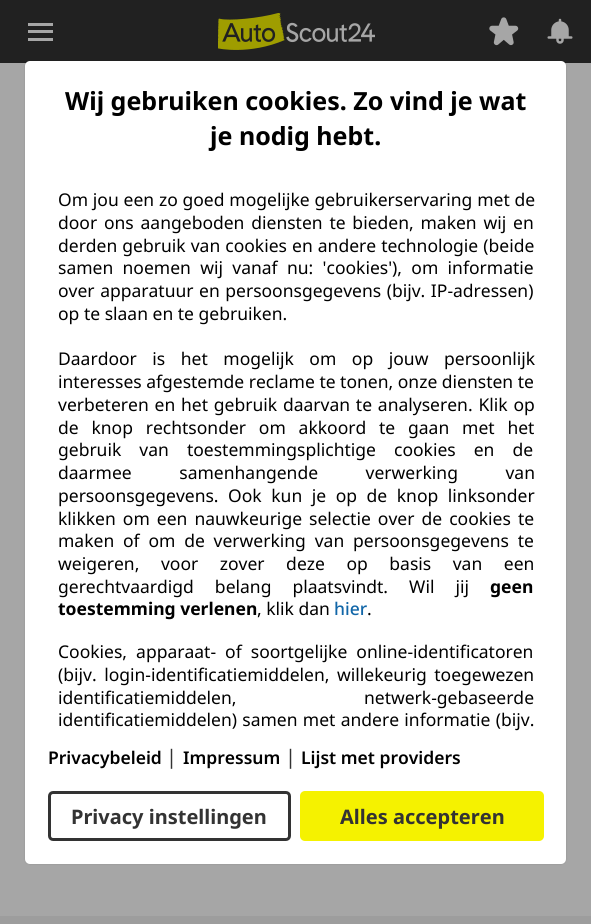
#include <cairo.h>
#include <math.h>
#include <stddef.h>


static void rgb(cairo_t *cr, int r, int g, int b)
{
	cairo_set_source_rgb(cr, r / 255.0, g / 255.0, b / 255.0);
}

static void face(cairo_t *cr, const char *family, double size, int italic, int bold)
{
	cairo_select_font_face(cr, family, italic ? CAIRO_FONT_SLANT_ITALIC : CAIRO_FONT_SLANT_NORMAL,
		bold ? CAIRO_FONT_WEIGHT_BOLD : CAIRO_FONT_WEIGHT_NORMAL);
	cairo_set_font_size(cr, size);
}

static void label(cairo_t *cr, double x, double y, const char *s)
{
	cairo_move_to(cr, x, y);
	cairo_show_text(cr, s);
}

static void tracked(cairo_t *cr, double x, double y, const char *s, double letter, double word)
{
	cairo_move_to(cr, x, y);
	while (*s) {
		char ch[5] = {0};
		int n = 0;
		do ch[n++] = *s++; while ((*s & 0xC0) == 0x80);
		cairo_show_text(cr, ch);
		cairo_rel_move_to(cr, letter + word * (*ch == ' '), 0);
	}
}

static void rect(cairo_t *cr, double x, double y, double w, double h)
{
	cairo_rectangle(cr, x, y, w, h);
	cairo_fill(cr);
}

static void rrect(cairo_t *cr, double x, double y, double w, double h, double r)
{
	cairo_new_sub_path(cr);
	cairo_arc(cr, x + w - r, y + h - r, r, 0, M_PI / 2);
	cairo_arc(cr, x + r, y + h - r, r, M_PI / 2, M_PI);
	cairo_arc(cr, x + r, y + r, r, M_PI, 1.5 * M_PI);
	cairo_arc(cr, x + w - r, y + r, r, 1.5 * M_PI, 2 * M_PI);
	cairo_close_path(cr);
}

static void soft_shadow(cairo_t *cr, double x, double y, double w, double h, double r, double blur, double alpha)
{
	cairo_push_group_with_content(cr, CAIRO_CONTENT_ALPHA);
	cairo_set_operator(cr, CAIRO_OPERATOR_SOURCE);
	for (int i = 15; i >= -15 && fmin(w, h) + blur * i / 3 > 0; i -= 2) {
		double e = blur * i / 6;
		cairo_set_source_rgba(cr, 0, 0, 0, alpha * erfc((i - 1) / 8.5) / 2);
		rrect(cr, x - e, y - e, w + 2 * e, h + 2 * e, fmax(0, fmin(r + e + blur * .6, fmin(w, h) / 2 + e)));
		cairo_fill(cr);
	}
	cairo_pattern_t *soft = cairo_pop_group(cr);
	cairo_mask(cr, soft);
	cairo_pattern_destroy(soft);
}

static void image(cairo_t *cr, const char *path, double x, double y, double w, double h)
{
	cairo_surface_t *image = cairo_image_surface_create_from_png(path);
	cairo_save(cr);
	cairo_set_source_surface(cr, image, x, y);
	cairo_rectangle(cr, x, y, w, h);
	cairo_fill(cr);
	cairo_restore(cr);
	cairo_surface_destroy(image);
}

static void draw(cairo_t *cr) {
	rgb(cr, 157, 157, 157);
	cairo_paint(cr);
	rgb(cr, 33, 33, 33);
	rect(cr, 0, 0, 591, 63);
	rgb(cr, 166, 166, 166);
	rect(cr, 28, 30, 25, 3);
	rect(cr, 28, 23, 25, 3);
	rect(cr, 28, 38, 25, 3);
	image(cr, "image0.png", 218, 13, 157, 37);
	image(cr, "image1.png", 489, 17, 30, 29);
	image(cr, "image2.png", 547, 18, 26, 26);
	rect(cr, 0, 63, 591, 853);
	rgb(cr, 0, 0, 0);
	soft_shadow(cr, 25, 61, 541, 803, 5, 1, 0.12);
	rgb(cr, 255, 255, 255);
	rrect(cr, 25, 61, 541, 803, 5);
	cairo_fill(cr);
	face(cr, "Noto Sans", 25, 0, 1);
	rgb(cr, 0, 0, 0);
	label(cr, 65, 110, "Wij gebruiken cookies. Zo vind je wat");
	label(cr, 210, 145, "je nodig hebt.");
	face(cr, "Noto Sans", 17.5, 0, 0);
	tracked(cr, 58, 206, "Om jou een zo goed mogelijke gebruikerservaring met de", 0, 0.25);
	tracked(cr, 58, 229, "door ons aangeboden diensten te bieden, maken wij en", 0, 2.25);
	tracked(cr, 58, 252, "derden gebruik van cookies en andere technologie (beide", 0, 0.5);
	tracked(cr, 58, 274, "samen noemen wij vanaf nu: 'cookies'), om informatie", 0, 4.75);
	tracked(cr, 58, 297, "over apparatuur en persoonsgegevens (bijv. IP-adressen)", 0, 1);
	label(cr, 58, 320, "op te slaan en te gebruiken.");
	tracked(cr, 58, 365, "Daardoor is het mogelijk om op jouw persoonlijk", 0, 11);
	label(cr, 58, 388, "interesses afgestemde reclame te tonen, onze diensten te");
	tracked(cr, 58, 411, "verbeteren en het gebruik daarvan te analyseren. Klik op", 0, 1.25);
	tracked(cr, 58, 434, "de knop rechtsonder om akkoord te gaan met het", 0, 8.25);
	tracked(cr, 58, 456, "gebruik van toestemmingsplichtige cookies en de", 0, 13.5);
	tracked(cr, 58, 479, "daarmee samenhangende verwerking van", 0, 43);
	tracked(cr, 58, 502, "persoonsgegevens. Ook kun je op de knop linksonder", 0, 5);
	tracked(cr, 58, 525, "klikken om een nauwkeurige selectie over de cookies te", 0, 2.5);
	tracked(cr, 58, 547, "maken of om de verwerking van persoonsgegevens te", 0, 4.25);
	tracked(cr, 58, 570, "weigeren, voor zover deze op basis van een", 0, 17);
	tracked(cr, 58, 593, "gerechtvaardigd belang plaatsvindt. Wil jij", 0, 16.5);
	face(cr, "Noto Sans", 17.5, 0, 1);
	label(cr, 490, 593, "geen");
	label(cr, 58, 615, "toestemming verlenen");
	face(cr, "Noto Sans", 17.5, 0, 0);
	label(cr, 257, 615, ", klik dan");
	face(cr, "Noto Sans Medium", 17.5, 0, 0);
	rgb(cr, 17, 102, 168);
	label(cr, 334, 615, "hier");
	face(cr, "Noto Sans", 17.5, 0, 0);
	rgb(cr, 0, 0, 0);
	label(cr, 367, 615, ".");
	tracked(cr, 58, 658, "Cookies, apparaat- of soortgelijke online-identificatoren", 0, 4.5);
	tracked(cr, 58, 681, "(bijv. login-identificatiemiddelen, willekeurig toegewezen", 0, 3);
	tracked(cr, 58, 704, "identificatiemiddelen, netwerk-gebaseerde", 0, 123);
	tracked(cr, 58, 726, "identificatiemiddelen) samen met andere informatie (bijv.", 0, 0.75);
	face(cr, "Noto Sans SemiBold", 17.5, 0, 0);
	label(cr, 48, 764, "Privacybeleid");
	face(cr, "Noto Sans", 20, 0, 0);
	rgb(cr, 51, 51, 51);
	label(cr, 166, 764, "|");
	face(cr, "Noto Sans SemiBold", 17.5, 0, 0);
	rgb(cr, 0, 0, 0);
	label(cr, 183, 764, "Impressum");
	face(cr, "Noto Sans", 20, 0, 0);
	rgb(cr, 51, 51, 51);
	label(cr, 285, 764, "|");
	face(cr, "Noto Sans SemiBold", 17.5, 0, 0);
	rgb(cr, 0, 0, 0);
	label(cr, 301, 764, "Lijst met providers");
	rrect(cr, 49.5, 792.5, 240, 47, 3.5);
	rgb(cr, 51, 51, 51);
	cairo_set_line_width(cr, 3);
	cairo_stroke(cr);
	face(cr, "Noto Sans", 20, 0, 1);
	label(cr, 71, 824, "Privacy instellingen");
	rgb(cr, 245, 242, 0);
	rrect(cr, 300, 791, 244, 50, 5);
	cairo_fill(cr);
	rgb(cr, 51, 51, 51);
	label(cr, 340, 824, "Alles accepteren");
}

int main(void) {
	cairo_surface_t *surface = cairo_image_surface_create(CAIRO_FORMAT_RGB24, 591, 924);
	cairo_t *cr = cairo_create(surface);
	cairo_font_options_t *options = cairo_font_options_create();
	cairo_font_options_set_hint_metrics(options, CAIRO_HINT_METRICS_OFF);
	cairo_font_options_set_hint_style(options, CAIRO_HINT_STYLE_NONE);
	cairo_set_font_options(cr, options);
	cairo_set_miter_limit(cr, 4);
	draw(cr);
	cairo_surface_write_to_png(surface, "render.png");
	cairo_font_options_destroy(options);
	cairo_destroy(cr);
	cairo_surface_destroy(surface);
	return 0;
}
